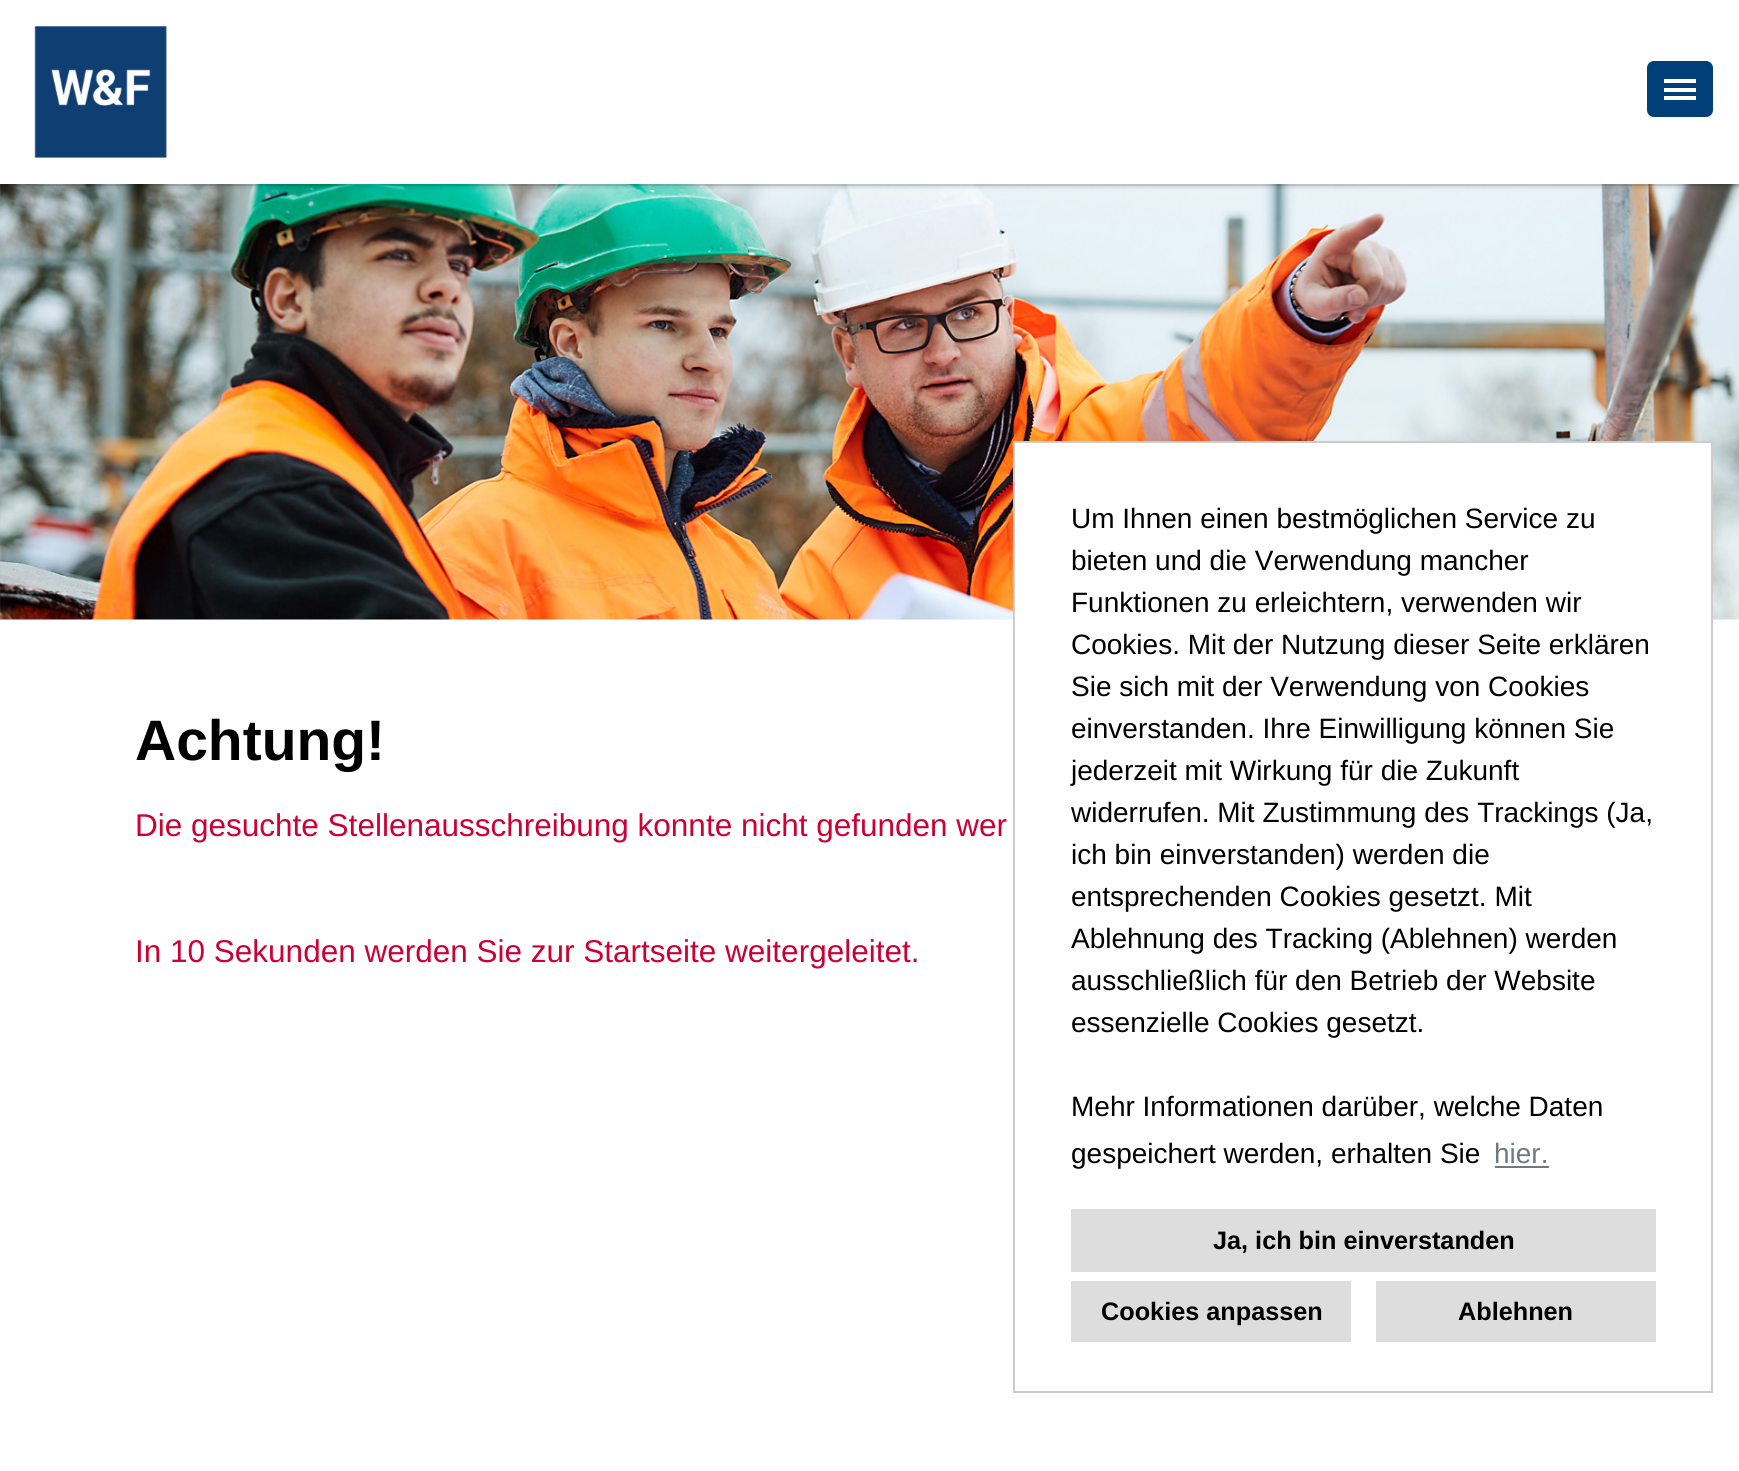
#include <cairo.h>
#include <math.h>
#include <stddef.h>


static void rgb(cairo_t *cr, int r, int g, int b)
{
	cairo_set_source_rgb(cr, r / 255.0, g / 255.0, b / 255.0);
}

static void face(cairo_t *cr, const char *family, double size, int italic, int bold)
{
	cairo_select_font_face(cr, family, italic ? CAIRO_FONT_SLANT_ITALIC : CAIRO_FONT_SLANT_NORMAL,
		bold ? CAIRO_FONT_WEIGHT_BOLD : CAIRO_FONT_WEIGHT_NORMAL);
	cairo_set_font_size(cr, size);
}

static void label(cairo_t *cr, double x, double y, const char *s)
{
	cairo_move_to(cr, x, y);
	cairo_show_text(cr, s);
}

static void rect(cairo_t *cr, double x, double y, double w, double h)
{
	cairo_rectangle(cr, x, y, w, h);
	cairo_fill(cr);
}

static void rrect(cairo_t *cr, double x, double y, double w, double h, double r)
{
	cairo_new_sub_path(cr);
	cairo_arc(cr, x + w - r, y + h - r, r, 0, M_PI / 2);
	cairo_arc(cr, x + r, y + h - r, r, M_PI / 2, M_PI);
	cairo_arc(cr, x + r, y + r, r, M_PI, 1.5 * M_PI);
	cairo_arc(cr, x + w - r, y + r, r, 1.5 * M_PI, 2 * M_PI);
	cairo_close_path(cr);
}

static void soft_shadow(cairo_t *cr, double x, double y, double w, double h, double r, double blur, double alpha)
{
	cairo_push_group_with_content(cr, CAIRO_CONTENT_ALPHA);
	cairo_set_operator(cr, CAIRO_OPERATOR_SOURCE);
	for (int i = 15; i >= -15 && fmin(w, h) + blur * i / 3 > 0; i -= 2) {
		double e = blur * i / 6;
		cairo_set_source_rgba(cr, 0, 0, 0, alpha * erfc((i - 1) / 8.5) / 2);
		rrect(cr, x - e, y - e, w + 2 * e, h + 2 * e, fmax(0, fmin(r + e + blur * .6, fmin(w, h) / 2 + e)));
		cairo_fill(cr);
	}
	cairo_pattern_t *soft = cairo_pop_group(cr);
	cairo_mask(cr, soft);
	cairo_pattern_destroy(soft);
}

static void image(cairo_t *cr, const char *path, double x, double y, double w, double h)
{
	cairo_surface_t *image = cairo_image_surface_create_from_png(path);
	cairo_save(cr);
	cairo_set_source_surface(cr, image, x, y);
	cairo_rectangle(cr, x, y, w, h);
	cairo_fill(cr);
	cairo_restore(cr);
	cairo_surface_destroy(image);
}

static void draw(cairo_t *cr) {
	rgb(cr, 255, 255, 255);
	cairo_paint(cr);
	image(cr, "image1.png", 0, 184, 1739, 436);
	cairo_rectangle(cr, -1, -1, 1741, 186);
	cairo_set_source_rgba(cr, 0, 0, 0, 0.08);
	cairo_stroke(cr);
	rgb(cr, 0, 0, 0);
	soft_shadow(cr, 0, 4, 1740, 183, 0, 2, 0.16);
	rgb(cr, 255, 255, 255);
	rect(cr, 0, 1, 1739, 183);
	image(cr, "image0.png", 34, 26, 133, 132);
	rgb(cr, 0, 63, 119);
	rrect(cr, 1647, 61, 66, 56, 7);
	cairo_fill(cr);
	rgb(cr, 255, 255, 255);
	rect(cr, 1664, 79, 32, 4);
	rect(cr, 1664, 88, 32, 4);
	rect(cr, 1664, 96, 32, 4);
	face(cr, "Liberation Sans", 57, 0, 1);
	rgb(cr, 0, 0, 0);
	label(cr, 135, 760, "Achtung!");
	face(cr, "Liberation Sans", 31.5, 0, 0);
	rgb(cr, 204, 0, 51);
	label(cr, 135, 836, "Die gesuchte Stellenausschreibung konnte nicht gefunden wer");
	label(cr, 135, 962, "In 10 Sekunden werden Sie zur Startseite weitergeleitet.");
	rgb(cr, 255, 255, 255);
	rect(cr, 1015, 443, 696, 177);
	cairo_rectangle(cr, 1014, 442, 698, 950);
	rgb(cr, 204, 204, 204);
	cairo_stroke(cr);
	face(cr, "Liberation Sans", 28, 0, 0);
	rgb(cr, 0, 0, 0);
	label(cr, 1071, 528, "Um Ihnen einen bestmöglichen Service zu");
	label(cr, 1071, 570, "bieten und die Verwendung mancher");
	label(cr, 1071, 612, "Funktionen zu erleichtern, verwenden wir");
	label(cr, 1071, 654, "Cookies. Mit der Nutzung dieser Seite erklären");
	label(cr, 1071, 696, "Sie sich mit der Verwendung von Cookies");
	label(cr, 1071, 738, "einverstanden. Ihre Einwilligung können Sie");
	label(cr, 1071, 780, "jederzeit mit Wirkung für die Zukunft");
	label(cr, 1071, 822, "widerrufen. Mit Zustimmung des Trackings (Ja,");
	label(cr, 1071, 864, "ich bin einverstanden) werden die");
	label(cr, 1071, 906, "entsprechenden Cookies gesetzt. Mit");
	label(cr, 1071, 948, "Ablehnung des Tracking (Ablehnen) werden");
	label(cr, 1071, 990, "ausschließlich für den Betrieb der Website");
	label(cr, 1071, 1032, "essenzielle Cookies gesetzt.");
	label(cr, 1071, 1116, "Mehr Informationen darüber, welche Daten");
	label(cr, 1071, 1163, "gespeichert werden, erhalten Sie");
	rgb(cr, 111, 121, 127);
	label(cr, 1494, 1163, "hier.");
	rect(cr, 1495, 1166, 54, 2);
	rgb(cr, 221, 221, 221);
	rect(cr, 1071, 1209, 585, 63);
	face(cr, "Liberation Sans", 25.25, 0, 1);
	rgb(cr, 0, 0, 0);
	label(cr, 1213, 1249, "Ja, ich bin einverstanden");
	rgb(cr, 221, 221, 221);
	rect(cr, 1071, 1281, 280, 61);
	rgb(cr, 0, 0, 0);
	label(cr, 1101, 1320, "Cookies anpassen");
	rgb(cr, 221, 221, 221);
	rect(cr, 1376, 1281, 280, 61);
	rgb(cr, 0, 0, 0);
	label(cr, 1458, 1320, "Ablehnen");
}

int main(void) {
	cairo_surface_t *surface = cairo_image_surface_create(CAIRO_FORMAT_RGB24, 1739, 1471);
	cairo_t *cr = cairo_create(surface);
	cairo_font_options_t *options = cairo_font_options_create();
	cairo_font_options_set_hint_metrics(options, CAIRO_HINT_METRICS_OFF);
	cairo_font_options_set_hint_style(options, CAIRO_HINT_STYLE_NONE);
	cairo_set_font_options(cr, options);
	cairo_set_miter_limit(cr, 4);
	draw(cr);
	cairo_surface_write_to_png(surface, "render.png");
	cairo_font_options_destroy(options);
	cairo_destroy(cr);
	cairo_surface_destroy(surface);
	return 0;
}
